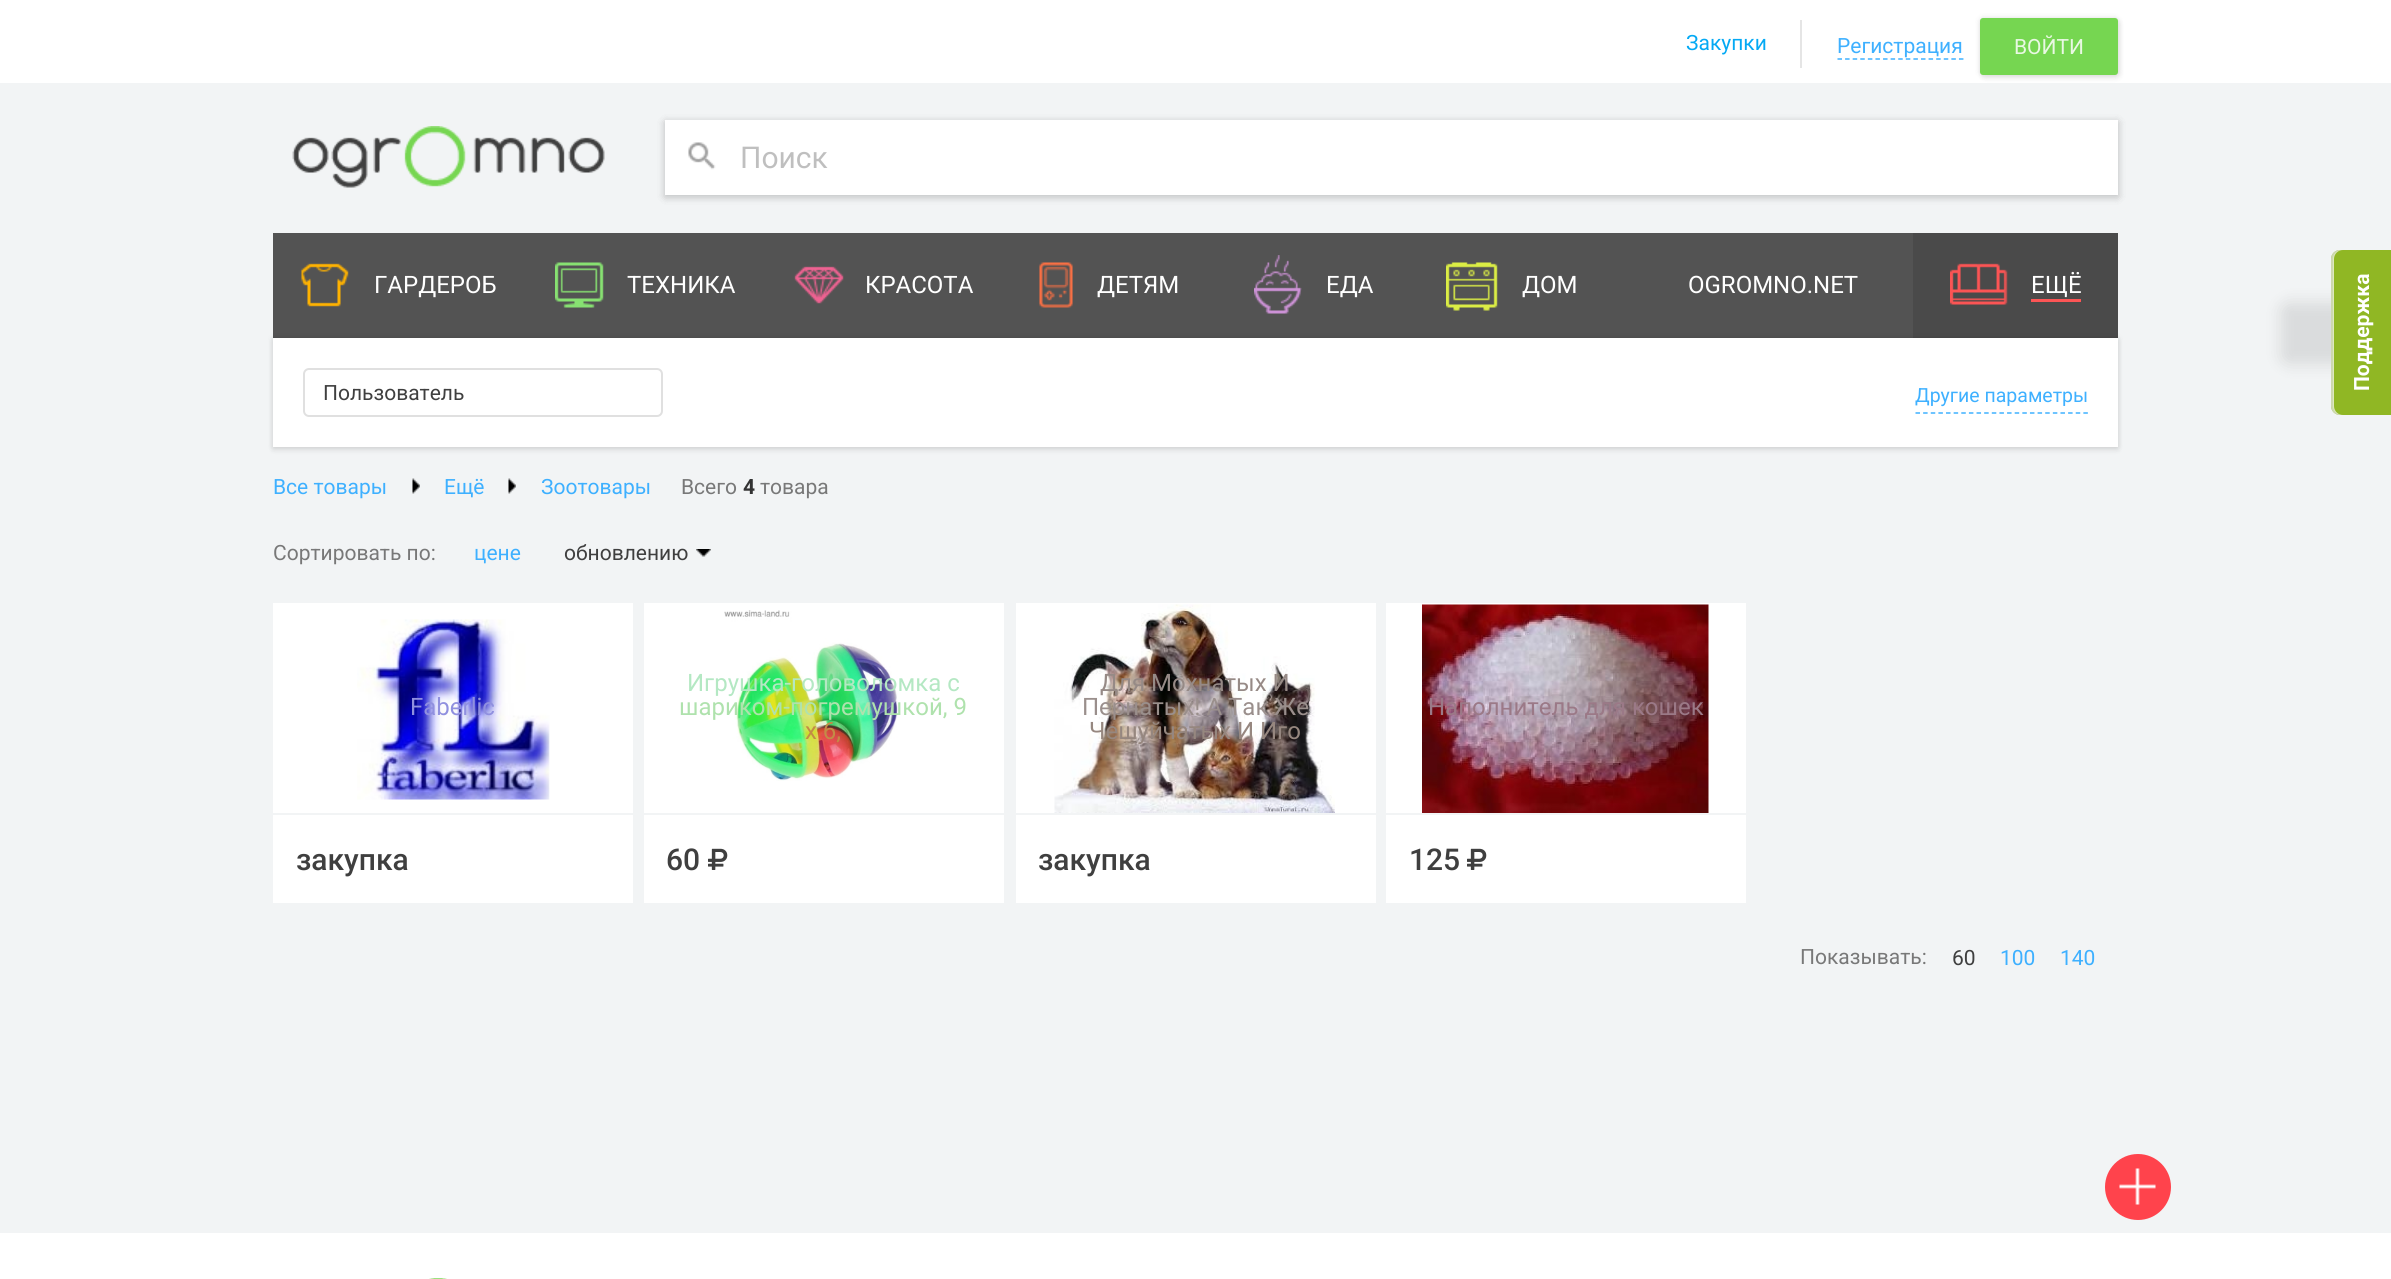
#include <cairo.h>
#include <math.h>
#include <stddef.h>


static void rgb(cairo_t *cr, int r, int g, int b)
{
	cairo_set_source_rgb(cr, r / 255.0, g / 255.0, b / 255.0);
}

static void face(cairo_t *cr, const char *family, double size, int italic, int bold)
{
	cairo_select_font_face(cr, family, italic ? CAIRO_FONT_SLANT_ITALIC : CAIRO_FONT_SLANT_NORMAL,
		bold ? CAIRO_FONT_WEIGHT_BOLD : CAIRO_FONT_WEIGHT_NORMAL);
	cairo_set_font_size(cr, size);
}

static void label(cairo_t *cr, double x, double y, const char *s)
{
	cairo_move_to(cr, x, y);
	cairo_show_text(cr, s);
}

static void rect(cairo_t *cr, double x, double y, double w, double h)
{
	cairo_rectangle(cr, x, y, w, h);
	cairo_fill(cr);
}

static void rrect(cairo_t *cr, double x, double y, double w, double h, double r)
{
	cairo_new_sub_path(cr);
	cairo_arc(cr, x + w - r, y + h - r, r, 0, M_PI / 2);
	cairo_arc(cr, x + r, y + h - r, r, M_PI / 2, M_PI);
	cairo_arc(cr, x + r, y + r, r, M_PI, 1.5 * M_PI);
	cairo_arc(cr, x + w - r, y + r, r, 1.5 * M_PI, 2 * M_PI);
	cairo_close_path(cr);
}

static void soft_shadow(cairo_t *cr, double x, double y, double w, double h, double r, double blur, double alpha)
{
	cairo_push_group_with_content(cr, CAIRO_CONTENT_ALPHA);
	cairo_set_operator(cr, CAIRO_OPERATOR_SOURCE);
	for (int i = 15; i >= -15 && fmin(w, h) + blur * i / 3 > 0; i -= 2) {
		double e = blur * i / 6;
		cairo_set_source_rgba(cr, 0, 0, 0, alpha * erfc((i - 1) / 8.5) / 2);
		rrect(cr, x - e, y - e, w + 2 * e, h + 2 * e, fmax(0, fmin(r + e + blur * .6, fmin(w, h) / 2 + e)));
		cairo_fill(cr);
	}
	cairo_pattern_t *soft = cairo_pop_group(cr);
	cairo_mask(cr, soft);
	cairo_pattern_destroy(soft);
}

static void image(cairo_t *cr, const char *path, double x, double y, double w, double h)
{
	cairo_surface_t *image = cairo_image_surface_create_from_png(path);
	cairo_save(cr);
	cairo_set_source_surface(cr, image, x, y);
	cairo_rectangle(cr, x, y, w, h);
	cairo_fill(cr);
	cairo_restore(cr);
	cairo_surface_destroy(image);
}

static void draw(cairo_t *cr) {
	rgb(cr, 242, 244, 245);
	cairo_paint(cr);
	rgb(cr, 255, 255, 255);
	rect(cr, 0, 0, 2391, 83);
	face(cr, "Roboto", 21, 0, 0);
	rgb(cr, 3, 169, 244);
	label(cr, 1686, 50, "Закупки");
	rgb(cr, 229, 229, 229);
	rect(cr, 1800, 20, 2, 48);
	rgb(cr, 62, 176, 255);
	label(cr, 1837, 53, "Регистрация");
	cairo_new_path(cr);
	cairo_move_to(cr, 1837.5, 59);
	cairo_line_to(cr, 1963.5, 59);
	cairo_set_line_width(cr, 1.5);
	cairo_set_dash(cr, (double[]){4.5, 3.09}, 2, 0);
	cairo_stroke(cr);
	rgb(cr, 0, 0, 0);
	soft_shadow(cr, 1980, 18, 138, 57, 3, 3, 0.12);
	soft_shadow(cr, 1982, 21, 138, 57, 3, 3, 0.08);
	rgb(cr, 118, 214, 81);
	rrect(cr, 1980, 18, 138, 57, 3);
	cairo_fill(cr);
	rgb(cr, 233, 248, 227);
	label(cr, 2014, 54, "ВОЙТИ");
	image(cr, "image0.png", 292, 126, 313, 62);
	rgb(cr, 0, 0, 0);
	soft_shadow(cr, 665, 122, 1453, 75, 0, 4.5, 0.12);
	soft_shadow(cr, 665, 122, 1453, 75, 0, 4.5, 0.12);
	rgb(cr, 255, 255, 255);
	rect(cr, 665, 120, 1453, 75);
	image(cr, "image1.png", 688, 142, 28, 28);
	face(cr, "Roboto", 30, 0, 0);
	rgb(cr, 191, 191, 191);
	label(cr, 740, 168, "Поиск");
	rgb(cr, 83, 83, 83);
	rect(cr, 273, 233, 1640, 105);
	image(cr, "image2.png", 301, 263, 48, 44);
	face(cr, "Roboto", 24, 0, 0);
	rgb(cr, 255, 255, 255);
	label(cr, 374, 293, "ГАРДЕРОБ");
	image(cr, "image3.png", 555, 262, 49, 46);
	label(cr, 627, 293, "ТЕХНИКА");
	image(cr, "image4.png", 794, 266, 50, 38);
	label(cr, 865, 293, "КРАСОТА");
	image(cr, "image5.png", 1039, 262, 34, 46);
	label(cr, 1097, 293, "ДЕТЯМ");
	image(cr, "image6.png", 1254, 255, 48, 59);
	label(cr, 1326, 293, "ЕДА");
	image(cr, "image7.png", 1446, 262, 52, 49);
	label(cr, 1522, 293, "ДОМ");
	label(cr, 1688, 293, "OGROMNO.NET");
	rgb(cr, 74, 74, 74);
	rect(cr, 1913, 233, 205, 105);
	image(cr, "image8.png", 1950, 263, 58, 42);
	rgb(cr, 255, 255, 255);
	label(cr, 2031, 293, "ЕЩЁ");
	rgb(cr, 252, 85, 85);
	rect(cr, 2031, 299, 50, 3);
	rgb(cr, 0, 0, 0);
	soft_shadow(cr, 273, 338, 1845, 109, 0, 3, 0.12);
	soft_shadow(cr, 273, 341, 1845, 109, 0, 3, 0.08);
	rgb(cr, 255, 255, 255);
	rect(cr, 273, 338, 1845, 109);
	rrect(cr, 304, 369, 358, 47, 5);
	rgb(cr, 224, 224, 224);
	cairo_set_line_width(cr, 2);
	cairo_set_dash(cr, NULL, 0, 0);
	cairo_stroke(cr);
	face(cr, "Roboto", 21, 0, 0);
	rgb(cr, 63, 63, 63);
	label(cr, 323, 400, "Пользователь");
	face(cr, "Roboto", 19.5, 0, 0);
	rgb(cr, 62, 176, 255);
	label(cr, 1915, 402, "Другие параметры");
	cairo_new_path(cr);
	cairo_move_to(cr, 1915.5, 413);
	cairo_line_to(cr, 2088, 413);
	cairo_set_line_width(cr, 1.5);
	cairo_set_dash(cr, (double[]){4.5, 3.13}, 2, 0);
	cairo_stroke(cr);
	face(cr, "Roboto", 21, 0, 0);
	label(cr, 273, 494, "Все товары");
	image(cr, "image9.png", 412, 478, 8, 16);
	label(cr, 444, 494, "Ещё");
	image(cr, "image10.png", 508, 478, 8, 16);
	label(cr, 541, 494, "Зоотовары");
	rgb(cr, 120, 120, 120);
	label(cr, 681, 494, "Всего");
	face(cr, "Roboto", 21, 0, 1);
	rgb(cr, 51, 51, 51);
	label(cr, 743, 494, "4");
	face(cr, "Roboto", 21, 0, 0);
	rgb(cr, 120, 120, 120);
	label(cr, 760, 494, "товара");
	label(cr, 273, 560, "Сортировать по:");
	rgb(cr, 62, 176, 255);
	label(cr, 474, 560, "цене");
	rgb(cr, 63, 63, 63);
	label(cr, 564, 560, "обновлению");
	image(cr, "image11.png", 696, 549, 15, 8);
	rgb(cr, 255, 255, 255);
	rect(cr, 273, 603, 360, 300);
	image(cr, "image12.png", 357, 619, 193, 181);
	face(cr, "Roboto", 24, 0, 0);
	rgb(cr, 144, 144, 223);
	label(cr, 410, 715, "Faberlic");
	rgb(cr, 242, 244, 245);
	rect(cr, 273, 813, 360, 2);
	face(cr, "Roboto Medium", 30, 0, 0);
	rgb(cr, 63, 63, 63);
	label(cr, 296, 870, "закупка");
	rgb(cr, 255, 255, 255);
	rect(cr, 644, 603, 360, 300);
	image(cr, "image13.png", 724, 610, 174, 171);
	face(cr, "Roboto", 24, 0, 0);
	rgb(cr, 180, 232, 195);
	label(cr, 687, 691, "Игрушка-головоломка с");
	rgb(cr, 175, 226, 173);
	label(cr, 679, 715, "шариком-погремушкой, 9");
	rgb(cr, 195, 140, 70);
	label(cr, 805, 739, "х 6,");
	rgb(cr, 242, 244, 245);
	rect(cr, 644, 813, 360, 2);
	face(cr, "Roboto Medium", 30, 0, 0);
	rgb(cr, 63, 63, 63);
	label(cr, 666, 870, "60");
	image(cr, "image14.png", 708, 848, 20, 22);
	rgb(cr, 255, 255, 255);
	rect(cr, 1016, 603, 360, 300);
	image(cr, "image15.png", 1054, 604, 281, 209);
	face(cr, "Roboto", 24, 0, 0);
	rgb(cr, 150, 138, 134);
	label(cr, 1100, 691, "Для Мохнатых И");
	rgb(cr, 154, 143, 140);
	label(cr, 1082, 715, "Пернатых! А Так Же");
	rgb(cr, 150, 135, 127);
	label(cr, 1089, 739, "Чешуйчатых И Иго");
	rgb(cr, 242, 244, 245);
	rect(cr, 1016, 813, 360, 2);
	face(cr, "Roboto Medium", 30, 0, 0);
	rgb(cr, 63, 63, 63);
	label(cr, 1038, 870, "закупка");
	rgb(cr, 255, 255, 255);
	rect(cr, 1386, 603, 360, 300);
	image(cr, "image16.png", 1422, 604, 287, 209);
	face(cr, "Roboto", 24, 0, 0);
	rgb(cr, 155, 121, 135);
	label(cr, 1428, 715, "Наполнитель для кошек");
	rgb(cr, 242, 244, 245);
	rect(cr, 1386, 813, 360, 2);
	face(cr, "Roboto Medium", 30, 0, 0);
	rgb(cr, 63, 63, 63);
	label(cr, 1409, 870, "125");
	image(cr, "image14.png", 1467, 848, 20, 22);
	face(cr, "Roboto", 21, 0, 0);
	rgb(cr, 120, 120, 120);
	label(cr, 1800, 964, "Показывать:");
	rgb(cr, 63, 63, 63);
	label(cr, 1952, 965, "60");
	rgb(cr, 62, 176, 255);
	label(cr, 2000, 965, "100");
	label(cr, 2060, 965, "140");
	rgb(cr, 255, 67, 76);
	cairo_new_path(cr);
	cairo_arc(cr, 2138, 1187, 33, 0, 2 * M_PI);
	cairo_fill(cr);
	image(cr, "image17.png", 2119, 1168, 37, 37);
	rgb(cr, 255, 255, 255);
	rect(cr, 0, 1233, 2391, 46);
	image(cr, "image18.png", 429, 1278, 18, 1);
	rgb(cr, 0, 0, 0);
	soft_shadow(cr, 2280, 302, 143, 63, 9, 7.5, 0.1);
	rgb(cr, 144, 183, 36);
	cairo_new_path(cr);
	cairo_move_to(cr, 2331, 406);
	cairo_line_to(cr, 2331, 259);
	cairo_curve_to(cr, 2331, 254, 2335, 250, 2340, 250);
	cairo_line_to(cr, 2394, 250);
	cairo_line_to(cr, 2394, 415);
	cairo_line_to(cr, 2340, 415);
	cairo_curve_to(cr, 2335, 415, 2331, 411, 2331, 406);
	cairo_close_path(cr);
	cairo_fill(cr);
	cairo_set_source_rgba(cr, 1, 1, 1, 0.7);
	cairo_new_path(cr);
	cairo_move_to(cr, 2334, 406);
	cairo_line_to(cr, 2334, 259);
	cairo_curve_to(cr, 2334, 254, 2338, 250, 2343, 250);
	cairo_line_to(cr, 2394, 250);
	cairo_line_to(cr, 2340, 250);
	cairo_curve_to(cr, 2335, 250, 2331, 254, 2331, 259);
	cairo_line_to(cr, 2331, 406);
	cairo_curve_to(cr, 2331, 411, 2335, 415, 2340, 415);
	cairo_line_to(cr, 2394, 415);
	cairo_line_to(cr, 2343, 415);
	cairo_curve_to(cr, 2338, 415, 2334, 411, 2334, 406);
	cairo_close_path(cr);
	cairo_fill(cr);
	cairo_set_source_rgba(cr, 0, 0, 0, 0.08);
	cairo_new_path(cr);
	cairo_move_to(cr, 2333, 406);
	cairo_line_to(cr, 2333, 259);
	cairo_curve_to(cr, 2333, 254, 2337, 250, 2342, 250);
	cairo_line_to(cr, 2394, 250);
	cairo_line_to(cr, 2340, 250);
	cairo_curve_to(cr, 2335, 250, 2331, 254, 2331, 259);
	cairo_line_to(cr, 2331, 406);
	cairo_curve_to(cr, 2331, 411, 2335, 415, 2340, 415);
	cairo_line_to(cr, 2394, 415);
	cairo_line_to(cr, 2342, 415);
	cairo_curve_to(cr, 2337, 415, 2333, 411, 2333, 406);
	cairo_close_path(cr);
	cairo_fill(cr);
	face(cr, "Roboto", 21, 0, 1);
	rgb(cr, 255, 255, 255);
	cairo_save(cr);
	cairo_translate(cr, 2369, 391);
	cairo_rotate(cr, -90 * M_PI / 180);
	label(cr, 0, 0, "Поддержка");
	cairo_restore(cr);
}

int main(void) {
	cairo_surface_t *surface = cairo_image_surface_create(CAIRO_FORMAT_RGB24, 2391, 1279);
	cairo_t *cr = cairo_create(surface);
	cairo_font_options_t *options = cairo_font_options_create();
	cairo_font_options_set_hint_metrics(options, CAIRO_HINT_METRICS_OFF);
	cairo_font_options_set_hint_style(options, CAIRO_HINT_STYLE_NONE);
	cairo_set_font_options(cr, options);
	cairo_set_miter_limit(cr, 4);
	draw(cr);
	cairo_surface_write_to_png(surface, "render.png");
	cairo_font_options_destroy(options);
	cairo_destroy(cr);
	cairo_surface_destroy(surface);
	return 0;
}
